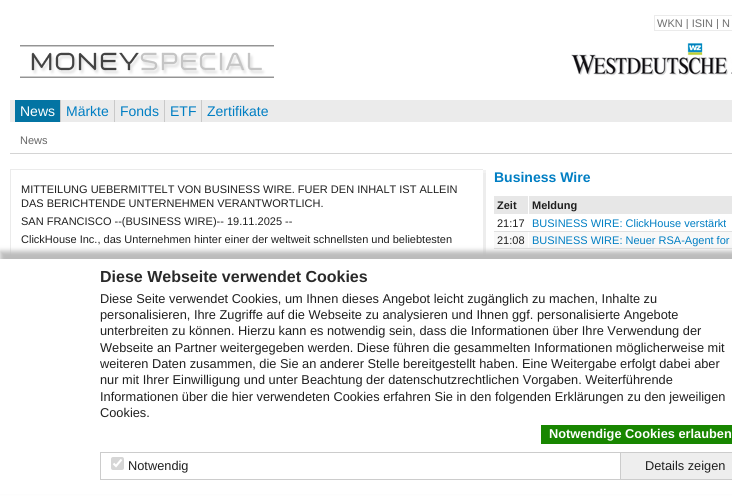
#include <cairo.h>
#include <math.h>
#include <stddef.h>


static void rgb(cairo_t *cr, int r, int g, int b)
{
	cairo_set_source_rgb(cr, r / 255.0, g / 255.0, b / 255.0);
}

static void face(cairo_t *cr, const char *family, double size, int italic, int bold)
{
	cairo_select_font_face(cr, family, italic ? CAIRO_FONT_SLANT_ITALIC : CAIRO_FONT_SLANT_NORMAL,
		bold ? CAIRO_FONT_WEIGHT_BOLD : CAIRO_FONT_WEIGHT_NORMAL);
	cairo_set_font_size(cr, size);
}

static void label(cairo_t *cr, double x, double y, const char *s)
{
	cairo_move_to(cr, x, y);
	cairo_show_text(cr, s);
}

static void rect(cairo_t *cr, double x, double y, double w, double h)
{
	cairo_rectangle(cr, x, y, w, h);
	cairo_fill(cr);
}

static void rrect(cairo_t *cr, double x, double y, double w, double h, double r)
{
	cairo_new_sub_path(cr);
	cairo_arc(cr, x + w - r, y + h - r, r, 0, M_PI / 2);
	cairo_arc(cr, x + r, y + h - r, r, M_PI / 2, M_PI);
	cairo_arc(cr, x + r, y + r, r, M_PI, 1.5 * M_PI);
	cairo_arc(cr, x + w - r, y + r, r, 1.5 * M_PI, 2 * M_PI);
	cairo_close_path(cr);
}

static void soft_shadow(cairo_t *cr, double x, double y, double w, double h, double r, double blur, double alpha)
{
	cairo_push_group_with_content(cr, CAIRO_CONTENT_ALPHA);
	cairo_set_operator(cr, CAIRO_OPERATOR_SOURCE);
	for (int i = 15; i >= -15 && fmin(w, h) + blur * i / 3 > 0; i -= 2) {
		double e = blur * i / 6;
		cairo_set_source_rgba(cr, 0, 0, 0, alpha * erfc((i - 1) / 8.5) / 2);
		rrect(cr, x - e, y - e, w + 2 * e, h + 2 * e, fmax(0, fmin(r + e + blur * .6, fmin(w, h) / 2 + e)));
		cairo_fill(cr);
	}
	cairo_pattern_t *soft = cairo_pop_group(cr);
	cairo_mask(cr, soft);
	cairo_pattern_destroy(soft);
}

static void image(cairo_t *cr, const char *path, double x, double y, double w, double h)
{
	cairo_surface_t *image = cairo_image_surface_create_from_png(path);
	cairo_save(cr);
	cairo_set_source_surface(cr, image, x, y);
	cairo_rectangle(cr, x, y, w, h);
	cairo_fill(cr);
	cairo_restore(cr);
	cairo_surface_destroy(image);
}

static void draw(cairo_t *cr) {
	rgb(cr, 255, 255, 255);
	cairo_paint(cr);
	cairo_rectangle(cr, 654.5, 15.5, 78, 15);
	rgb(cr, 235, 235, 235);
	cairo_set_line_width(cr, 1);
	cairo_stroke(cr);
	cairo_save(cr);
	cairo_rectangle(cr, 657, 17, 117, 12);
	cairo_clip(cr);
	face(cr, "Liberation Sans", 11, 0, 0);
	rgb(cr, 111, 111, 111);
	label(cr, 657, 27, "WKN | ISIN | N");
	cairo_restore(cr);
	image(cr, "image0.png", 20, 45, 254, 33);
	image(cr, "image1.png", 571, 43, 161, 33);
	rect(cr, 10, 100, 722, 22);
	rgb(cr, 3, 116, 163);
	rect(cr, 15, 100, 45, 22);
	face(cr, "Liberation Sans", 14, 0, 0);
	rgb(cr, 255, 255, 255);
	label(cr, 20, 116, "News");
	rgb(cr, 201, 201, 201);
	rect(cr, 60, 100, 1, 22);
	rgb(cr, 0, 126, 195);
	label(cr, 66, 116, "Märkte");
	rgb(cr, 201, 201, 201);
	rect(cr, 114, 100, 1, 22);
	rgb(cr, 0, 126, 195);
	label(cr, 120, 116, "Fonds");
	rgb(cr, 201, 201, 201);
	rect(cr, 164, 100, 1, 22);
	rgb(cr, 0, 126, 195);
	label(cr, 170, 116, "ETF");
	rgb(cr, 201, 201, 201);
	rect(cr, 201, 100, 1, 22);
	rgb(cr, 0, 126, 195);
	label(cr, 207, 116, "Zertifikate");
	rgb(cr, 212, 212, 212);
	rect(cr, 10, 153, 722, 1);
	face(cr, "Liberation Sans", 11, 0, 0);
	rgb(cr, 102, 102, 102);
	label(cr, 20, 144, "News");
	rgb(cr, 242, 242, 242);
	rect(cr, 483, 170, 3, 3);
	rgb(cr, 237, 237, 237);
	rect(cr, 483, 173, 3, 84);
	rgb(cr, 235, 235, 235);
	rect(cr, 10, 169, 473, 1);
	rect(cr, 10, 169, 1, 88);
	rgb(cr, 31, 31, 31);
	label(cr, 21, 193, "MITTEILUNG UEBERMITTELT VON BUSINESS WIRE. FUER DEN INHALT IST ALLEIN");
	label(cr, 21, 207, "DAS BERICHTENDE UNTERNEHMEN VERANTWORTLICH.");
	label(cr, 21, 225, "SAN FRANCISCO --(BUSINESS WIRE)-- 19.11.2025 --");
	label(cr, 21, 243, "ClickHouse Inc., das Unternehmen hinter einer der weltweit schnellsten und beliebtesten");
	face(cr, "Liberation Sans", 14, 0, 1);
	rgb(cr, 0, 126, 195);
	label(cr, 494, 182, "Business Wire");
	rgb(cr, 231, 231, 231);
	rect(cr, 494, 196, 34, 18);
	face(cr, "Liberation Sans", 11, 0, 1);
	rgb(cr, 31, 31, 31);
	label(cr, 497, 209, "Zeit");
	rgb(cr, 231, 231, 231);
	rect(cr, 529, 196, 203, 18);
	rgb(cr, 31, 31, 31);
	label(cr, 532, 209, "Meldung");
	rgb(cr, 248, 248, 248);
	rect(cr, 494, 232, 238, 16);
	rgb(cr, 224, 224, 224);
	rect(cr, 528, 248, 204, 1);
	rgb(cr, 255, 255, 255);
	rect(cr, 528, 231, 1, 18);
	rgb(cr, 224, 224, 224);
	rect(cr, 528, 231, 204, 1);
	rgb(cr, 255, 255, 255);
	rect(cr, 528, 231, 1, 1);
	rgb(cr, 224, 224, 224);
	rect(cr, 493, 231, 36, 1);
	rgb(cr, 255, 255, 255);
	rect(cr, 493, 231, 1, 1);
	face(cr, "Liberation Sans", 11, 0, 0);
	rgb(cr, 31, 31, 31);
	label(cr, 497, 227, "21:17");
	rgb(cr, 0, 126, 195);
	label(cr, 532, 227, "BUSINESS WIRE: ClickHouse verstärkt");
	rgb(cr, 224, 224, 224);
	rect(cr, 493, 248, 36, 1);
	rgb(cr, 255, 255, 255);
	rect(cr, 493, 248, 1, 1);
	rgb(cr, 31, 31, 31);
	label(cr, 497, 244, "21:08");
	rgb(cr, 0, 126, 195);
	label(cr, 532, 244, "BUSINESS WIRE: Neuer RSA-Agent for");
	rgb(cr, 187, 187, 187);
	soft_shadow(cr, 0, 251, 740, 239, 0, 2.5, 1);
	rgb(cr, 255, 255, 255);
	rect(cr, 0, 259, 732, 235);
	face(cr, "Liberation Sans", 16, 0, 1);
	rgb(cr, 42, 42, 42);
	label(cr, 100, 282, "Diese Webseite verwendet Cookies");
	face(cr, "Liberation Sans", 12.8, 0, 0);
	rgb(cr, 31, 31, 31);
	label(cr, 100, 303, "Diese Seite verwendet Cookies, um Ihnen dieses Angebot leicht zugänglich zu machen, Inhalte zu");
	label(cr, 100, 319, "personalisieren, Ihre Zugriffe auf die Webseite zu analysieren und Ihnen ggf. personalisierte Angebote");
	label(cr, 100, 335, "unterbreiten zu können. Hierzu kann es notwendig sein, dass die Informationen über Ihre Verwendung der");
	label(cr, 100, 352, "Webseite an Partner weitergegeben werden. Diese führen die gesammelten Informationen möglicherweise mit");
	label(cr, 100, 368, "weiteren Daten zusammen, die Sie an anderer Stelle bereitgestellt haben. Eine Weitergabe erfolgt dabei aber");
	label(cr, 100, 384, "nur mit Ihrer Einwilligung und unter Beachtung der datenschutzrechtlichen Vorgaben. Weiterführende");
	label(cr, 100, 401, "Informationen über die hier verwendeten Cookies erfahren Sie in den folgenden Erklärungen zu den jeweiligen");
	label(cr, 100, 417, "Cookies.");
	rgb(cr, 24, 134, 0);
	rect(cr, 541, 425, 191, 19);
	face(cr, "Liberation Sans", 12.8, 0, 1);
	rgb(cr, 255, 255, 255);
	label(cr, 549, 438, "Notwendige Cookies erlauben");
	cairo_rectangle(cr, 100.5, 452.5, 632, 27);
	rgb(cr, 204, 204, 204);
	cairo_stroke(cr);
	rgb(cr, 214, 214, 214);
	rrect(cr, 111, 457, 13, 13, 2);
	cairo_fill(cr);
	cairo_new_path(cr);
	cairo_move_to(cr, 113.5, 463.5);
	cairo_line_to(cr, 116, 466);
	cairo_line_to(cr, 121.5, 459.5);
	rgb(cr, 255, 255, 255);
	cairo_set_line_width(cr, 2.1);
	cairo_stroke(cr);
	face(cr, "Liberation Sans", 12.8, 0, 0);
	rgb(cr, 31, 31, 31);
	label(cr, 128, 470, "Notwendig");
	rgb(cr, 238, 238, 238);
	rect(cr, 621, 453, 111, 26);
	rgb(cr, 204, 204, 204);
	rect(cr, 620, 453, 1, 26);
	rgb(cr, 31, 31, 31);
	label(cr, 645, 470, "Details zeigen");
}

int main(void) {
	cairo_surface_t *surface = cairo_image_surface_create(CAIRO_FORMAT_RGB24, 732, 498);
	cairo_t *cr = cairo_create(surface);
	cairo_font_options_t *options = cairo_font_options_create();
	cairo_font_options_set_hint_metrics(options, CAIRO_HINT_METRICS_OFF);
	cairo_font_options_set_hint_style(options, CAIRO_HINT_STYLE_NONE);
	cairo_set_font_options(cr, options);
	cairo_set_miter_limit(cr, 4);
	draw(cr);
	cairo_surface_write_to_png(surface, "render.png");
	cairo_font_options_destroy(options);
	cairo_destroy(cr);
	cairo_surface_destroy(surface);
	return 0;
}
